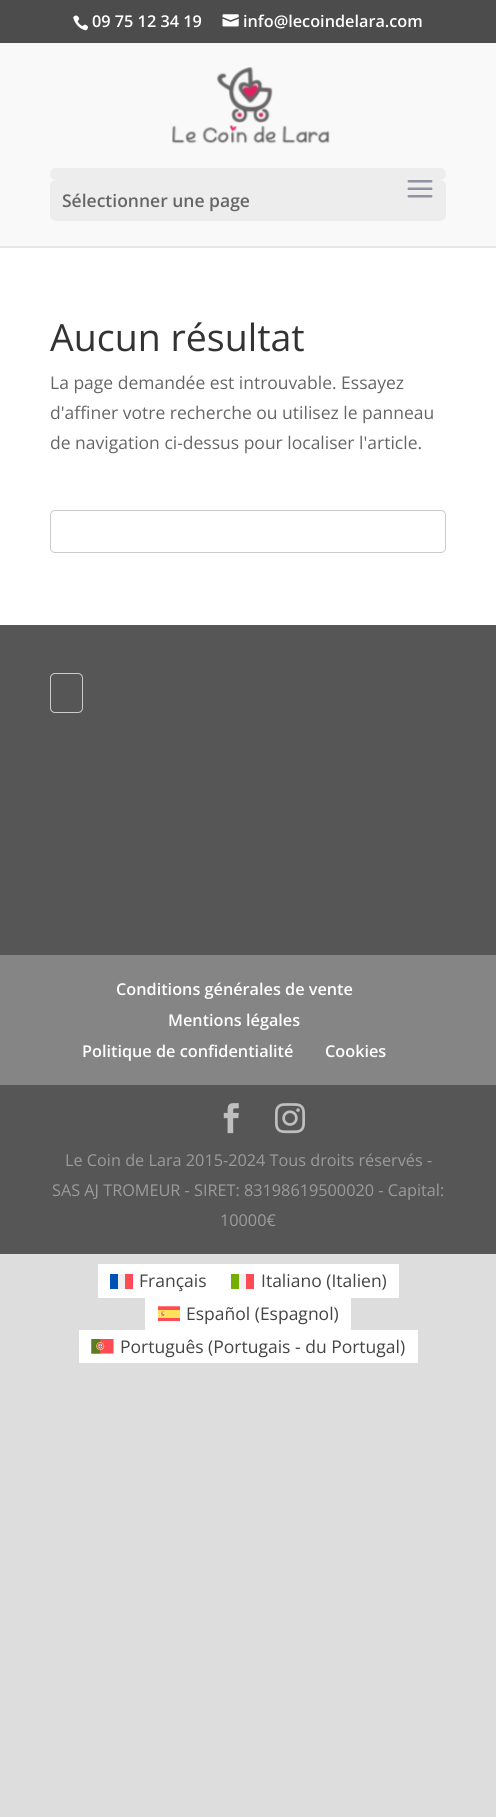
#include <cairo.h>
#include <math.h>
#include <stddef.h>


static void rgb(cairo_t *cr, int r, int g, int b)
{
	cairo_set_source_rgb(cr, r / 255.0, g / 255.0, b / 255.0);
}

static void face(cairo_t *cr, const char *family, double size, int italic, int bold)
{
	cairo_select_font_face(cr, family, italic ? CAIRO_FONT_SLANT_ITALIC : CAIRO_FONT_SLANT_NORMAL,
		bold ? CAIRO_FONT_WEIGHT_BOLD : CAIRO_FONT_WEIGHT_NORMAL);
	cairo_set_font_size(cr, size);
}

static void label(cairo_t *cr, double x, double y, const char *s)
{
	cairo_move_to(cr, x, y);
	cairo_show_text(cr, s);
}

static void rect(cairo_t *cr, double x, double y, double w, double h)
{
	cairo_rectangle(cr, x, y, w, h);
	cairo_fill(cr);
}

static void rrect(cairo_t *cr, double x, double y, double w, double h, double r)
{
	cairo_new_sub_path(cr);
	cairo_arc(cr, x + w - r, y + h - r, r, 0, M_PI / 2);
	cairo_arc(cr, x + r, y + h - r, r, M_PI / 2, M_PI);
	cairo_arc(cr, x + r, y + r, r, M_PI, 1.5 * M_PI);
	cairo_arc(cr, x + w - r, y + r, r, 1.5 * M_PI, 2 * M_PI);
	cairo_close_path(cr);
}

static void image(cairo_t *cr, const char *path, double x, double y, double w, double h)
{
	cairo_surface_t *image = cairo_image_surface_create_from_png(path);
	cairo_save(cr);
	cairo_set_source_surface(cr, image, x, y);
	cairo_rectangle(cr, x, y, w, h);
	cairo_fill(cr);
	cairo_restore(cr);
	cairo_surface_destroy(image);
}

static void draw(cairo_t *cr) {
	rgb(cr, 221, 221, 221);
	cairo_paint(cr);
	rgb(cr, 76, 76, 76);
	rect(cr, 0, 0, 496, 43);
	image(cr, "image0.png", 73, 15, 15, 16);
	face(cr, "Open Sans SemiBold", 16.25, 0, 0);
	rgb(cr, 255, 255, 255);
	label(cr, 92, 27, "09 75 12 34 19");
	image(cr, "image1.png", 222, 14, 17, 13);
	label(cr, 243, 27, "info@lecoindelara.com");
	rgb(cr, 230, 230, 230);
	rect(cr, 0, 246, 496, 2);
	rgb(cr, 249, 249, 249);
	rect(cr, 0, 43, 496, 203);
	image(cr, "image2.png", 172, 67, 158, 77);
	rgb(cr, 237, 237, 237);
	rrect(cr, 50, 168, 396, 12, 6);
	cairo_fill(cr);
	rrect(cr, 50, 180, 396, 41, 6);
	cairo_fill(cr);
	image(cr, "image3.png", 407, 180, 26, 18);
	face(cr, "Open Sans SemiBold", 17.5, 0, 0);
	rgb(cr, 102, 102, 102);
	label(cr, 62, 207, "Sélectionner une page");
	rgb(cr, 255, 255, 255);
	rect(cr, 0, 248, 496, 377);
	face(cr, "Open Sans", 37.5, 0, 0);
	rgb(cr, 51, 51, 51);
	label(cr, 50, 351, "Aucun résultat");
	face(cr, "Open Sans", 17.5, 0, 0);
	rgb(cr, 102, 102, 102);
	label(cr, 50, 389, "La page demandée est introuvable. Essayez");
	label(cr, 50, 419, "d'affiner votre recherche ou utilisez le panneau");
	label(cr, 50, 449, "de navigation ci-dessus pour localiser l'article.");
	rrect(cr, 50.5, 510.5, 395, 42, 4.5);
	rgb(cr, 204, 204, 204);
	cairo_set_line_width(cr, 1);
	cairo_stroke(cr);
	rgb(cr, 86, 86, 86);
	rect(cr, 0, 625, 496, 629);
	rrect(cr, 50.5, 673.5, 32, 39, 4.5);
	rgb(cr, 204, 204, 204);
	cairo_stroke(cr);
	rgb(cr, 133, 133, 133);
	rect(cr, 0, 955, 496, 130);
	face(cr, "Open Sans SemiBold", 16.25, 0, 0);
	rgb(cr, 255, 255, 255);
	label(cr, 116, 995, "Conditions générales de vente");
	label(cr, 168, 1026, "Mentions légales");
	label(cr, 82, 1057, "Politique de confidentialité");
	label(cr, 325, 1057, "Cookies");
	image(cr, "image4.png", 223, 1103, 16, 31);
	image(cr, "image5.png", 275, 1103, 30, 31);
	face(cr, "Open Sans", 16.25, 0, 0);
	rgb(cr, 155, 155, 155);
	label(cr, 65, 1166, "Le Coin de Lara 2015-2024 Tous droits réservés -");
	label(cr, 52, 1196, "SAS AJ TROMEUR - SIRET: 83198619500020 - Capital:");
	label(cr, 220, 1226, "10000€");
	rgb(cr, 255, 255, 255);
	rect(cr, 98, 1264, 301, 34);
	rgb(cr, 0, 82, 180);
	rect(cr, 110, 1274, 8, 15);
	rgb(cr, 240, 240, 240);
	rect(cr, 118, 1274, 7, 15);
	rgb(cr, 255, 75, 85);
	rect(cr, 125, 1274, 8, 15);
	face(cr, "Open Sans", 17.5, 0, 0);
	rgb(cr, 68, 68, 68);
	label(cr, 139, 1287, "Français");
	rgb(cr, 115, 175, 0);
	rect(cr, 231, 1274, 8, 15);
	rgb(cr, 240, 240, 240);
	rect(cr, 239, 1274, 7, 15);
	rgb(cr, 255, 75, 85);
	rect(cr, 246, 1274, 8, 15);
	rgb(cr, 68, 68, 68);
	label(cr, 261, 1287, "Italiano (Italien)");
	rgb(cr, 255, 255, 255);
	rect(cr, 145, 1298, 206, 32);
	image(cr, "image6.png", 158, 1306, 22, 15);
	rgb(cr, 68, 68, 68);
	label(cr, 186, 1320, "Español (Espagnol)");
	rgb(cr, 255, 255, 255);
	rect(cr, 79, 1330, 339, 33);
	image(cr, "image7.png", 91, 1339, 23, 15);
	rgb(cr, 68, 68, 68);
	label(cr, 120, 1353, "Português (Portugais - du Portugal)");
}

int main(void) {
	cairo_surface_t *surface = cairo_image_surface_create(CAIRO_FORMAT_RGB24, 496, 1817);
	cairo_t *cr = cairo_create(surface);
	cairo_font_options_t *options = cairo_font_options_create();
	cairo_font_options_set_hint_metrics(options, CAIRO_HINT_METRICS_OFF);
	cairo_font_options_set_hint_style(options, CAIRO_HINT_STYLE_NONE);
	cairo_set_font_options(cr, options);
	cairo_set_miter_limit(cr, 4);
	draw(cr);
	cairo_surface_write_to_png(surface, "render.png");
	cairo_font_options_destroy(options);
	cairo_destroy(cr);
	cairo_surface_destroy(surface);
	return 0;
}
